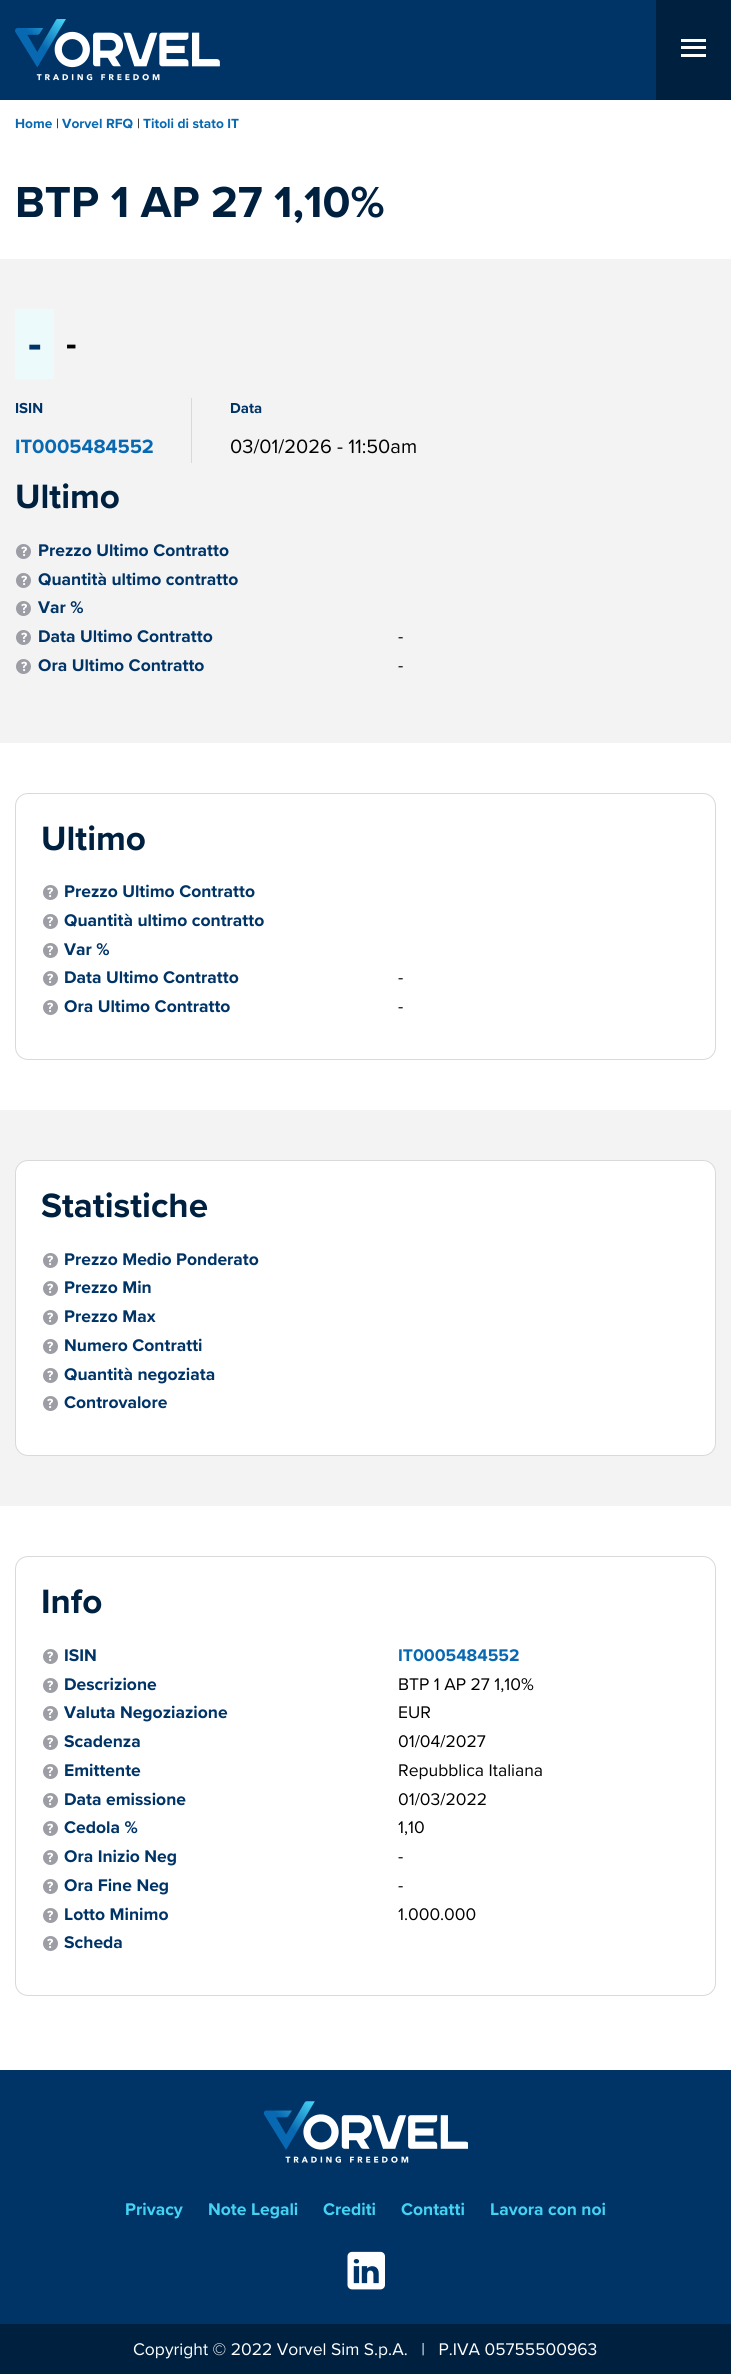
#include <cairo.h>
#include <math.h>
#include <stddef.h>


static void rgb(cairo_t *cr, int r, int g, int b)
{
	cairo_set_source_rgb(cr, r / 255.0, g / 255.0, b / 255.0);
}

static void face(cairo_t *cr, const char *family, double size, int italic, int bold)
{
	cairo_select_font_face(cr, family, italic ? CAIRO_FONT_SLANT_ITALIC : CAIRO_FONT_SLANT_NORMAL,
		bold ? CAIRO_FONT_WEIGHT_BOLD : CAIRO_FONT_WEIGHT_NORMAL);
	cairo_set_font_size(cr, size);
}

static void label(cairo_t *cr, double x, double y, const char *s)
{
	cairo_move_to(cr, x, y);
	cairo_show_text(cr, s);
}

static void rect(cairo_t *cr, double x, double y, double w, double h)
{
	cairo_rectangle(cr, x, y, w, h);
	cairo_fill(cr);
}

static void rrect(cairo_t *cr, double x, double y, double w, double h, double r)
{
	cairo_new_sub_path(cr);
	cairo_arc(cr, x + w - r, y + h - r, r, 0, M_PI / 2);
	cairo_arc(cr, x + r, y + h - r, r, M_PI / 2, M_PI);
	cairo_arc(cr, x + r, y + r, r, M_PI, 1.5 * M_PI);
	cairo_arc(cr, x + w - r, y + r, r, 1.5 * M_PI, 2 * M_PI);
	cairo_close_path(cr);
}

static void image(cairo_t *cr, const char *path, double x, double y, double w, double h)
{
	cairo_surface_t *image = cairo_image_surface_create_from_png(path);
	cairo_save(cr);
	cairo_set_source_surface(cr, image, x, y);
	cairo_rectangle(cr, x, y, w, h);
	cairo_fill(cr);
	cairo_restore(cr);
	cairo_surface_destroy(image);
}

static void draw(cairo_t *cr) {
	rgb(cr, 255, 255, 255);
	cairo_paint(cr);
	rgb(cr, 0, 51, 102);
	rect(cr, 0, 0, 656, 100);
	image(cr, "image0.png", 15, 19, 205, 62);
	rgb(cr, 0, 32, 64);
	rect(cr, 656, 0, 75, 100);
	rgb(cr, 255, 255, 255);
	rect(cr, 681, 46, 25, 3);
	rect(cr, 681, 39, 25, 3);
	rect(cr, 681, 54, 25, 3);
	face(cr, "Proxima Nova", 13.75, 0, 1);
	rgb(cr, 8, 105, 178);
	label(cr, 15, 128, "Home");
	face(cr, "Proxima Nova", 13.75, 0, 0);
	rgb(cr, 0, 0, 0);
	label(cr, 56, 128, "|");
	face(cr, "Proxima Nova", 13.75, 0, 1);
	rgb(cr, 8, 105, 178);
	label(cr, 62, 128, "Vorvel RFQ");
	face(cr, "Proxima Nova", 13.75, 0, 0);
	rgb(cr, 0, 0, 0);
	label(cr, 137, 128, "|");
	face(cr, "Proxima Nova", 13.75, 0, 1);
	rgb(cr, 8, 105, 178);
	label(cr, 143, 128, "Titoli di stato IT");
	face(cr, "Proxima Nova", 45, 0, 1);
	rgb(cr, 0, 32, 64);
	label(cr, 15, 217, "BTP 1 AP 27 1,10%");
	rgb(cr, 243, 243, 243);
	rect(cr, 0, 259, 731, 484);
	rgb(cr, 237, 250, 252);
	rect(cr, 15, 309, 39, 70);
	rgb(cr, 0, 51, 102);
	label(cr, 28, 358, "-");
	face(cr, "Proxima Nova", 35, 0, 1);
	rgb(cr, 0, 0, 0);
	label(cr, 66, 355, "-");
	rgb(cr, 217, 217, 220);
	rect(cr, 191, 398, 1, 65);
	face(cr, "Proxima Nova", 15, 0, 1);
	rgb(cr, 0, 51, 102);
	label(cr, 15, 413, "ISIN");
	face(cr, "Proxima Nova", 20, 0, 1);
	rgb(cr, 8, 105, 178);
	label(cr, 15, 453, "IT0005484552");
	face(cr, "Proxima Nova", 15, 0, 1);
	rgb(cr, 0, 51, 102);
	label(cr, 230, 413, "Data");
	face(cr, "Proxima Nova", 20, 0, 0);
	rgb(cr, 0, 0, 0);
	label(cr, 230, 453, "03/01/2026 - 11:50am");
	face(cr, "Proxima Nova", 35, 0, 1);
	rgb(cr, 0, 32, 64);
	label(cr, 15, 508, "Ultimo");
	rgb(cr, 156, 157, 165);
	cairo_new_path(cr);
	cairo_arc(cr, 23.5, 551.5, 7.5, 0, 2 * M_PI);
	cairo_fill(cr);
	face(cr, "Proxima Nova", 13.75, 0, 1);
	rgb(cr, 255, 255, 255);
	label(cr, 21, 556, "?");
	face(cr, "Proxima Nova", 17.5, 0, 1);
	rgb(cr, 0, 51, 102);
	label(cr, 38, 556, "Prezzo Ultimo Contratto");
	rgb(cr, 156, 157, 165);
	cairo_new_path(cr);
	cairo_arc(cr, 23.5, 580.5, 7.5, 0, 2 * M_PI);
	cairo_fill(cr);
	face(cr, "Proxima Nova", 13.75, 0, 1);
	rgb(cr, 255, 255, 255);
	label(cr, 21, 585, "?");
	face(cr, "Proxima Nova", 17.5, 0, 1);
	rgb(cr, 0, 51, 102);
	label(cr, 38, 585, "Quantità ultimo contratto");
	rgb(cr, 156, 157, 165);
	cairo_new_path(cr);
	cairo_arc(cr, 23.5, 608.5, 7.5, 0, 2 * M_PI);
	cairo_fill(cr);
	face(cr, "Proxima Nova", 13.75, 0, 1);
	rgb(cr, 255, 255, 255);
	label(cr, 21, 613, "?");
	face(cr, "Proxima Nova", 17.5, 0, 1);
	rgb(cr, 0, 51, 102);
	label(cr, 38, 613, "Var %");
	rgb(cr, 156, 157, 165);
	cairo_new_path(cr);
	cairo_arc(cr, 23.5, 637.5, 7.5, 0, 2 * M_PI);
	cairo_fill(cr);
	face(cr, "Proxima Nova", 13.75, 0, 1);
	rgb(cr, 255, 255, 255);
	label(cr, 21, 642, "?");
	face(cr, "Proxima Nova", 17.5, 0, 1);
	rgb(cr, 0, 51, 102);
	label(cr, 38, 642, "Data Ultimo Contratto");
	face(cr, "Proxima Nova", 17.5, 0, 0);
	rgb(cr, 0, 0, 0);
	label(cr, 398, 642, "-");
	rgb(cr, 156, 157, 165);
	cairo_new_path(cr);
	cairo_arc(cr, 23.5, 666.5, 7.5, 0, 2 * M_PI);
	cairo_fill(cr);
	face(cr, "Proxima Nova", 13.75, 0, 1);
	rgb(cr, 255, 255, 255);
	label(cr, 21, 671, "?");
	face(cr, "Proxima Nova", 17.5, 0, 1);
	rgb(cr, 0, 51, 102);
	label(cr, 38, 671, "Ora Ultimo Contratto");
	face(cr, "Proxima Nova", 17.5, 0, 0);
	rgb(cr, 0, 0, 0);
	label(cr, 398, 671, "-");
	rrect(cr, 15.5, 793.5, 700, 266, 12.5);
	rgb(cr, 217, 217, 220);
	cairo_set_line_width(cr, 1);
	cairo_stroke(cr);
	face(cr, "Proxima Nova", 35, 0, 1);
	rgb(cr, 0, 32, 64);
	label(cr, 41, 850, "Ultimo");
	rgb(cr, 156, 157, 165);
	cairo_new_path(cr);
	cairo_arc(cr, 50.5, 892.5, 7.5, 0, 2 * M_PI);
	cairo_fill(cr);
	face(cr, "Proxima Nova", 13.75, 0, 1);
	rgb(cr, 255, 255, 255);
	label(cr, 47, 897, "?");
	face(cr, "Proxima Nova", 17.5, 0, 1);
	rgb(cr, 0, 51, 102);
	label(cr, 64, 897, "Prezzo Ultimo Contratto");
	rgb(cr, 156, 157, 165);
	cairo_new_path(cr);
	cairo_arc(cr, 50.5, 921.5, 7.5, 0, 2 * M_PI);
	cairo_fill(cr);
	face(cr, "Proxima Nova", 13.75, 0, 1);
	rgb(cr, 255, 255, 255);
	label(cr, 47, 926, "?");
	face(cr, "Proxima Nova", 17.5, 0, 1);
	rgb(cr, 0, 51, 102);
	label(cr, 64, 926, "Quantità ultimo contratto");
	rgb(cr, 156, 157, 165);
	cairo_new_path(cr);
	cairo_arc(cr, 50.5, 950.5, 7.5, 0, 2 * M_PI);
	cairo_fill(cr);
	face(cr, "Proxima Nova", 13.75, 0, 1);
	rgb(cr, 255, 255, 255);
	label(cr, 47, 955, "?");
	face(cr, "Proxima Nova", 17.5, 0, 1);
	rgb(cr, 0, 51, 102);
	label(cr, 64, 955, "Var %");
	rgb(cr, 156, 157, 165);
	cairo_new_path(cr);
	cairo_arc(cr, 50.5, 978.5, 7.5, 0, 2 * M_PI);
	cairo_fill(cr);
	face(cr, "Proxima Nova", 13.75, 0, 1);
	rgb(cr, 255, 255, 255);
	label(cr, 47, 983, "?");
	face(cr, "Proxima Nova", 17.5, 0, 1);
	rgb(cr, 0, 51, 102);
	label(cr, 64, 983, "Data Ultimo Contratto");
	face(cr, "Proxima Nova", 17.5, 0, 0);
	rgb(cr, 0, 0, 0);
	label(cr, 398, 983, "-");
	rgb(cr, 156, 157, 165);
	cairo_new_path(cr);
	cairo_arc(cr, 50.5, 1007.5, 7.5, 0, 2 * M_PI);
	cairo_fill(cr);
	face(cr, "Proxima Nova", 13.75, 0, 1);
	rgb(cr, 255, 255, 255);
	label(cr, 47, 1012, "?");
	face(cr, "Proxima Nova", 17.5, 0, 1);
	rgb(cr, 0, 51, 102);
	label(cr, 64, 1012, "Ora Ultimo Contratto");
	face(cr, "Proxima Nova", 17.5, 0, 0);
	rgb(cr, 0, 0, 0);
	label(cr, 398, 1012, "-");
	rgb(cr, 243, 243, 243);
	rect(cr, 0, 1110, 731, 396);
	rgb(cr, 255, 255, 255);
	rrect(cr, 15.5, 1160.5, 700, 295, 12.5);
	cairo_fill_preserve(cr);
	rgb(cr, 217, 217, 220);
	cairo_stroke(cr);
	face(cr, "Proxima Nova", 35, 0, 1);
	rgb(cr, 0, 32, 64);
	label(cr, 41, 1217, "Statistiche");
	rgb(cr, 156, 157, 165);
	cairo_new_path(cr);
	cairo_arc(cr, 50.5, 1260.5, 7.5, 0, 2 * M_PI);
	cairo_fill(cr);
	face(cr, "Proxima Nova", 13.75, 0, 1);
	rgb(cr, 255, 255, 255);
	label(cr, 47, 1265, "?");
	face(cr, "Proxima Nova", 17.5, 0, 1);
	rgb(cr, 0, 51, 102);
	label(cr, 64, 1265, "Prezzo Medio Ponderato");
	rgb(cr, 156, 157, 165);
	cairo_new_path(cr);
	cairo_arc(cr, 50.5, 1288.5, 7.5, 0, 2 * M_PI);
	cairo_fill(cr);
	face(cr, "Proxima Nova", 13.75, 0, 1);
	rgb(cr, 255, 255, 255);
	label(cr, 47, 1293, "?");
	face(cr, "Proxima Nova", 17.5, 0, 1);
	rgb(cr, 0, 51, 102);
	label(cr, 64, 1293, "Prezzo Min");
	rgb(cr, 156, 157, 165);
	cairo_new_path(cr);
	cairo_arc(cr, 50.5, 1317.5, 7.5, 0, 2 * M_PI);
	cairo_fill(cr);
	face(cr, "Proxima Nova", 13.75, 0, 1);
	rgb(cr, 255, 255, 255);
	label(cr, 47, 1322, "?");
	face(cr, "Proxima Nova", 17.5, 0, 1);
	rgb(cr, 0, 51, 102);
	label(cr, 64, 1322, "Prezzo Max");
	rgb(cr, 156, 157, 165);
	cairo_new_path(cr);
	cairo_arc(cr, 50.5, 1346.5, 7.5, 0, 2 * M_PI);
	cairo_fill(cr);
	face(cr, "Proxima Nova", 13.75, 0, 1);
	rgb(cr, 255, 255, 255);
	label(cr, 47, 1351, "?");
	face(cr, "Proxima Nova", 17.5, 0, 1);
	rgb(cr, 0, 51, 102);
	label(cr, 64, 1351, "Numero Contratti");
	rgb(cr, 156, 157, 165);
	cairo_new_path(cr);
	cairo_arc(cr, 50.5, 1375.5, 7.5, 0, 2 * M_PI);
	cairo_fill(cr);
	face(cr, "Proxima Nova", 13.75, 0, 1);
	rgb(cr, 255, 255, 255);
	label(cr, 47, 1380, "?");
	face(cr, "Proxima Nova", 17.5, 0, 1);
	rgb(cr, 0, 51, 102);
	label(cr, 64, 1380, "Quantità negoziata");
	rgb(cr, 156, 157, 165);
	cairo_new_path(cr);
	cairo_arc(cr, 50.5, 1403.5, 7.5, 0, 2 * M_PI);
	cairo_fill(cr);
	face(cr, "Proxima Nova", 13.75, 0, 1);
	rgb(cr, 255, 255, 255);
	label(cr, 47, 1408, "?");
	face(cr, "Proxima Nova", 17.5, 0, 1);
	rgb(cr, 0, 51, 102);
	label(cr, 64, 1408, "Controvalore");
	rrect(cr, 15.5, 1556.5, 700, 439, 12.5);
	rgb(cr, 217, 217, 220);
	cairo_stroke(cr);
	face(cr, "Proxima Nova", 35, 0, 1);
	rgb(cr, 0, 32, 64);
	label(cr, 41, 1613, "Info");
	rgb(cr, 156, 157, 165);
	cairo_new_path(cr);
	cairo_arc(cr, 50.5, 1656.5, 7.5, 0, 2 * M_PI);
	cairo_fill(cr);
	face(cr, "Proxima Nova", 13.75, 0, 1);
	rgb(cr, 255, 255, 255);
	label(cr, 47, 1661, "?");
	face(cr, "Proxima Nova", 17.5, 0, 1);
	rgb(cr, 0, 51, 102);
	label(cr, 64, 1661, "ISIN");
	rgb(cr, 8, 105, 178);
	label(cr, 398, 1661, "IT0005484552");
	rgb(cr, 156, 157, 165);
	cairo_new_path(cr);
	cairo_arc(cr, 50.5, 1685.5, 7.5, 0, 2 * M_PI);
	cairo_fill(cr);
	face(cr, "Proxima Nova", 13.75, 0, 1);
	rgb(cr, 255, 255, 255);
	label(cr, 47, 1690, "?");
	face(cr, "Proxima Nova", 17.5, 0, 1);
	rgb(cr, 0, 51, 102);
	label(cr, 64, 1690, "Descrizione");
	face(cr, "Proxima Nova", 17.5, 0, 0);
	rgb(cr, 0, 0, 0);
	label(cr, 398, 1690, "BTP 1 AP 27 1,10%");
	rgb(cr, 156, 157, 165);
	cairo_new_path(cr);
	cairo_arc(cr, 50.5, 1713.5, 7.5, 0, 2 * M_PI);
	cairo_fill(cr);
	face(cr, "Proxima Nova", 13.75, 0, 1);
	rgb(cr, 255, 255, 255);
	label(cr, 47, 1718, "?");
	face(cr, "Proxima Nova", 17.5, 0, 1);
	rgb(cr, 0, 51, 102);
	label(cr, 64, 1718, "Valuta Negoziazione");
	face(cr, "Proxima Nova", 17.5, 0, 0);
	rgb(cr, 0, 0, 0);
	label(cr, 398, 1718, "EUR");
	rgb(cr, 156, 157, 165);
	cairo_new_path(cr);
	cairo_arc(cr, 50.5, 1742.5, 7.5, 0, 2 * M_PI);
	cairo_fill(cr);
	face(cr, "Proxima Nova", 13.75, 0, 1);
	rgb(cr, 255, 255, 255);
	label(cr, 47, 1747, "?");
	face(cr, "Proxima Nova", 17.5, 0, 1);
	rgb(cr, 0, 51, 102);
	label(cr, 64, 1747, "Scadenza");
	face(cr, "Proxima Nova", 17.5, 0, 0);
	rgb(cr, 0, 0, 0);
	label(cr, 398, 1747, "01/04/2027");
	rgb(cr, 156, 157, 165);
	cairo_new_path(cr);
	cairo_arc(cr, 50.5, 1771.5, 7.5, 0, 2 * M_PI);
	cairo_fill(cr);
	face(cr, "Proxima Nova", 13.75, 0, 1);
	rgb(cr, 255, 255, 255);
	label(cr, 47, 1776, "?");
	face(cr, "Proxima Nova", 17.5, 0, 1);
	rgb(cr, 0, 51, 102);
	label(cr, 64, 1776, "Emittente");
	face(cr, "Proxima Nova", 17.5, 0, 0);
	rgb(cr, 0, 0, 0);
	label(cr, 398, 1776, "Repubblica Italiana");
	rgb(cr, 156, 157, 165);
	cairo_new_path(cr);
	cairo_arc(cr, 50.5, 1800.5, 7.5, 0, 2 * M_PI);
	cairo_fill(cr);
	face(cr, "Proxima Nova", 13.75, 0, 1);
	rgb(cr, 255, 255, 255);
	label(cr, 47, 1805, "?");
	face(cr, "Proxima Nova", 17.5, 0, 1);
	rgb(cr, 0, 51, 102);
	label(cr, 64, 1805, "Data emissione");
	face(cr, "Proxima Nova", 17.5, 0, 0);
	rgb(cr, 0, 0, 0);
	label(cr, 398, 1805, "01/03/2022");
	rgb(cr, 156, 157, 165);
	cairo_new_path(cr);
	cairo_arc(cr, 50.5, 1828.5, 7.5, 0, 2 * M_PI);
	cairo_fill(cr);
	face(cr, "Proxima Nova", 13.75, 0, 1);
	rgb(cr, 255, 255, 255);
	label(cr, 47, 1833, "?");
	face(cr, "Proxima Nova", 17.5, 0, 1);
	rgb(cr, 0, 51, 102);
	label(cr, 64, 1833, "Cedola %");
	face(cr, "Proxima Nova", 17.5, 0, 0);
	rgb(cr, 0, 0, 0);
	label(cr, 398, 1833, "1,10");
	rgb(cr, 156, 157, 165);
	cairo_new_path(cr);
	cairo_arc(cr, 50.5, 1857.5, 7.5, 0, 2 * M_PI);
	cairo_fill(cr);
	face(cr, "Proxima Nova", 13.75, 0, 1);
	rgb(cr, 255, 255, 255);
	label(cr, 47, 1862, "?");
	face(cr, "Proxima Nova", 17.5, 0, 1);
	rgb(cr, 0, 51, 102);
	label(cr, 64, 1862, "Ora Inizio Neg");
	face(cr, "Proxima Nova", 17.5, 0, 0);
	rgb(cr, 0, 0, 0);
	label(cr, 398, 1862, "-");
	rgb(cr, 156, 157, 165);
	cairo_new_path(cr);
	cairo_arc(cr, 50.5, 1886.5, 7.5, 0, 2 * M_PI);
	cairo_fill(cr);
	face(cr, "Proxima Nova", 13.75, 0, 1);
	rgb(cr, 255, 255, 255);
	label(cr, 47, 1891, "?");
	face(cr, "Proxima Nova", 17.5, 0, 1);
	rgb(cr, 0, 51, 102);
	label(cr, 64, 1891, "Ora Fine Neg");
	face(cr, "Proxima Nova", 17.5, 0, 0);
	rgb(cr, 0, 0, 0);
	label(cr, 398, 1891, "-");
	rgb(cr, 156, 157, 165);
	cairo_new_path(cr);
	cairo_arc(cr, 50.5, 1915.5, 7.5, 0, 2 * M_PI);
	cairo_fill(cr);
	face(cr, "Proxima Nova", 13.75, 0, 1);
	rgb(cr, 255, 255, 255);
	label(cr, 47, 1920, "?");
	face(cr, "Proxima Nova", 17.5, 0, 1);
	rgb(cr, 0, 51, 102);
	label(cr, 64, 1920, "Lotto Minimo");
	face(cr, "Proxima Nova", 17.5, 0, 0);
	rgb(cr, 0, 0, 0);
	label(cr, 398, 1920, "1.000.000");
	rgb(cr, 156, 157, 165);
	cairo_new_path(cr);
	cairo_arc(cr, 50.5, 1943.5, 7.5, 0, 2 * M_PI);
	cairo_fill(cr);
	face(cr, "Proxima Nova", 13.75, 0, 1);
	rgb(cr, 255, 255, 255);
	label(cr, 47, 1948, "?");
	face(cr, "Proxima Nova", 17.5, 0, 1);
	rgb(cr, 0, 51, 102);
	label(cr, 64, 1948, "Scheda");
	rect(cr, 0, 2070, 731, 254);
	image(cr, "image1.png", 264, 2101, 204, 62);
	rgb(cr, 69, 211, 244);
	label(cr, 125, 2215, "Privacy");
	label(cr, 208, 2215, "Note Legali");
	label(cr, 323, 2215, "Crediti");
	label(cr, 401, 2215, "Contatti");
	label(cr, 490, 2215, "Lavora con noi");
	image(cr, "image2.png", 347, 2251, 38, 39);
	rgb(cr, 0, 32, 64);
	rect(cr, 0, 2324, 731, 50);
	face(cr, "Proxima Nova", 17.5, 0, 0);
	rgb(cr, 255, 255, 255);
	label(cr, 133, 2355, "Copyright © 2022 Vorvel Sim S.p.A.   |   P.IVA 05755500963");
}

int main(void) {
	cairo_surface_t *surface = cairo_image_surface_create(CAIRO_FORMAT_RGB24, 731, 2374);
	cairo_t *cr = cairo_create(surface);
	cairo_font_options_t *options = cairo_font_options_create();
	cairo_font_options_set_hint_metrics(options, CAIRO_HINT_METRICS_OFF);
	cairo_font_options_set_hint_style(options, CAIRO_HINT_STYLE_NONE);
	cairo_set_font_options(cr, options);
	cairo_set_miter_limit(cr, 4);
	draw(cr);
	cairo_surface_write_to_png(surface, "render.png");
	cairo_font_options_destroy(options);
	cairo_destroy(cr);
	cairo_surface_destroy(surface);
	return 0;
}
